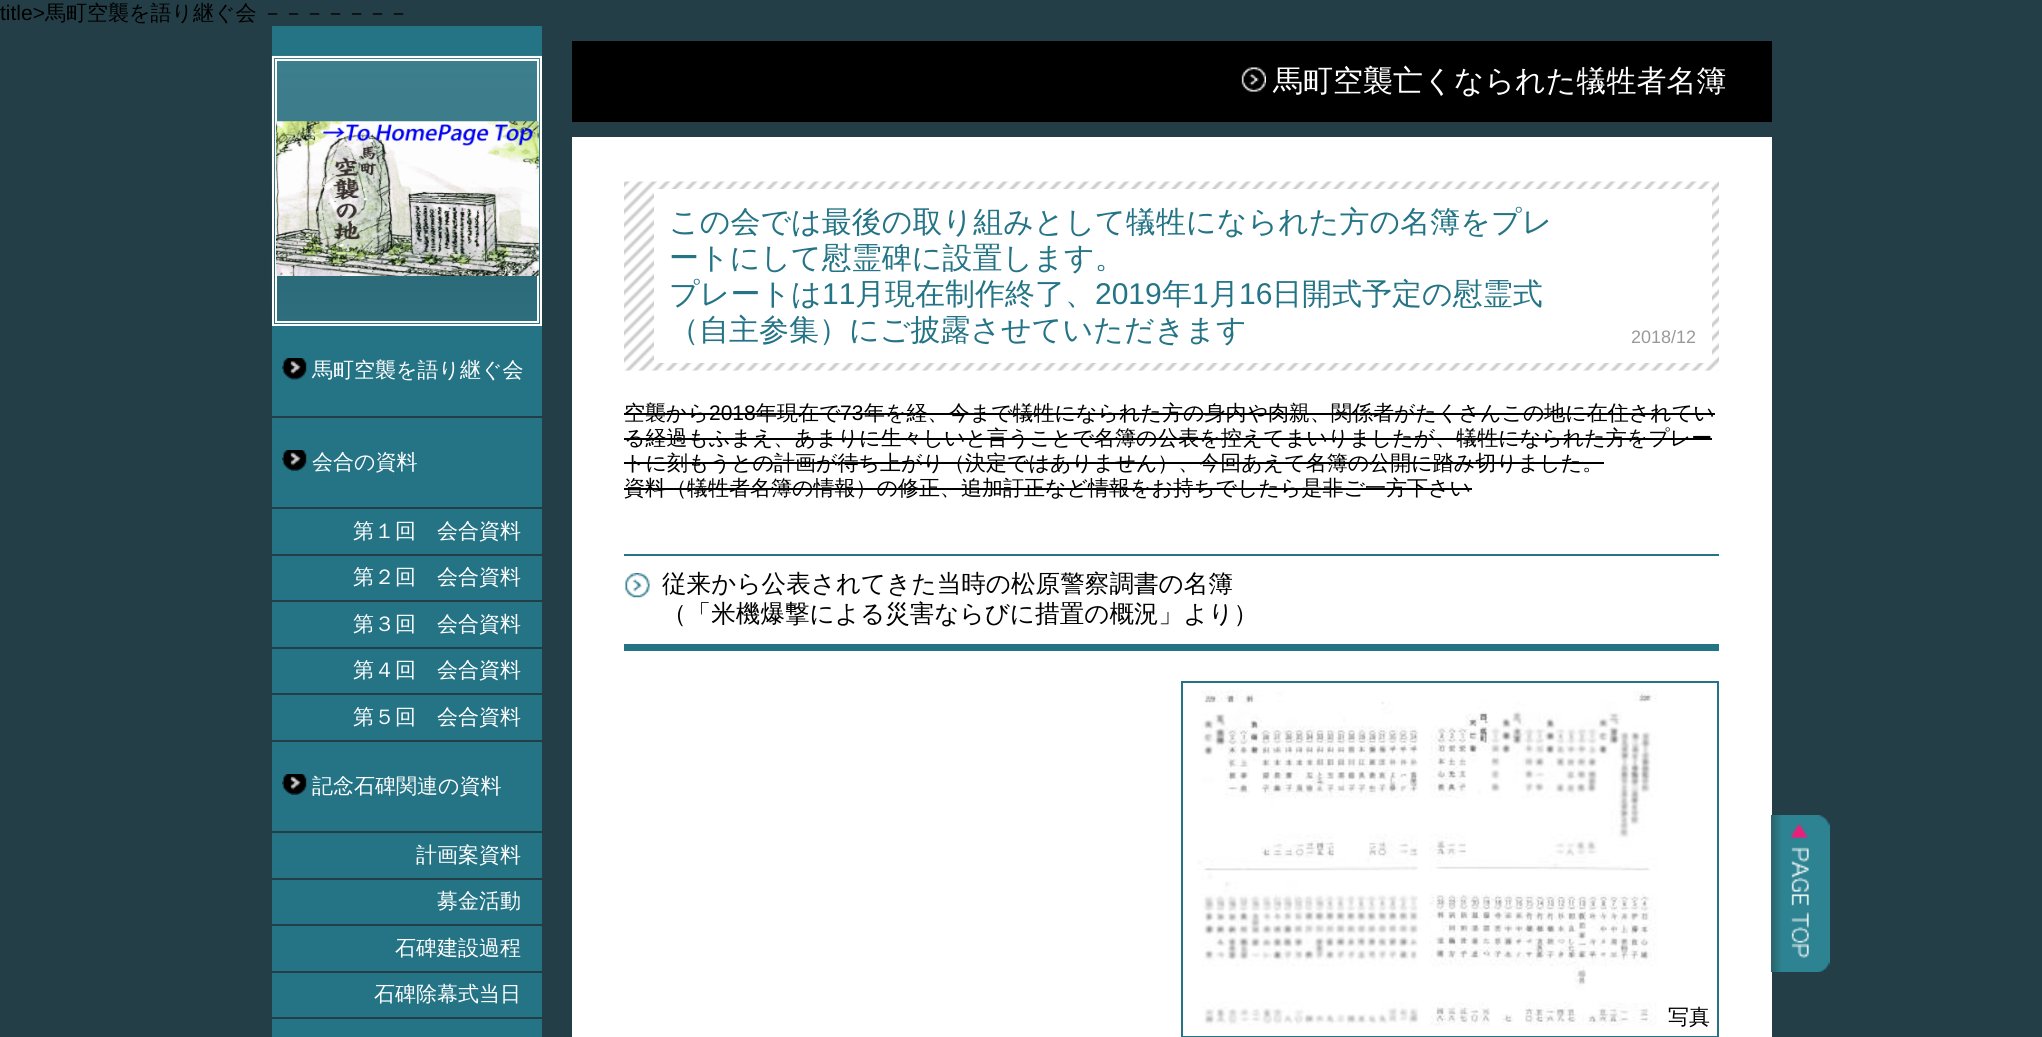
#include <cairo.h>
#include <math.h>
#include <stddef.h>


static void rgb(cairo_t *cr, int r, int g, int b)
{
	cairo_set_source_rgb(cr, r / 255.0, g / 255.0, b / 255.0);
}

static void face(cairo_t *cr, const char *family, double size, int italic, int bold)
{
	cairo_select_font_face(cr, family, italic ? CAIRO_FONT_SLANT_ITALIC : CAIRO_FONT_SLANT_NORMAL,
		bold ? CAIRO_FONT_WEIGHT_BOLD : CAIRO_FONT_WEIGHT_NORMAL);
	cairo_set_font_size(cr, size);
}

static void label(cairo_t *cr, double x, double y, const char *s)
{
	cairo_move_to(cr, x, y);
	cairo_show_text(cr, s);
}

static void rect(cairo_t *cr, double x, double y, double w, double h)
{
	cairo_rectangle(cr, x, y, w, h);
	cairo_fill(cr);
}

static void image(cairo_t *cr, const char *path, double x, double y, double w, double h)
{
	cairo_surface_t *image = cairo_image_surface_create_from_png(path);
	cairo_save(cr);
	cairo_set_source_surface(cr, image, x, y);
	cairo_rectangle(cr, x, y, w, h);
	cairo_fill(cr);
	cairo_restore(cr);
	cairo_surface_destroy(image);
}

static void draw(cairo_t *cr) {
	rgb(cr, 35, 62, 70);
	cairo_paint(cr);
	face(cr, "Liberation Sans", 21, 0, 0);
	rgb(cr, 0, 0, 0);
	label(cr, 0, 20, "title>");
	face(cr, "WenQuanYi Zen Hei Medium", 21, 0, 0);
	label(cr, 45, 20, "馬町空襲を語り継ぐ会");
	label(cr, 262, 20, "－－－－－－－");
	rgb(cr, 36, 116, 134);
	rect(cr, 272, 26, 270, 1011);
	image(cr, "image0.png", 271, 55, 271, 266);
	cairo_rectangle(cr, 273, 57, 268, 268);
	rgb(cr, 255, 255, 255);
	cairo_stroke(cr);
	cairo_rectangle(cr, 276, 60, 262, 262);
	cairo_stroke(cr);
	image(cr, "image1.png", 276, 121, 263, 155);
	image(cr, "image2.png", 276, 121, 263, 155);
	rgb(cr, 35, 62, 71);
	rect(cr, 272, 416, 270, 2);
	image(cr, "image3.png", 282, 358, 25, 22);
	rgb(cr, 255, 255, 255);
	label(cr, 312, 377, "馬町空襲を語り継ぐ会");
	rgb(cr, 35, 62, 71);
	rect(cr, 272, 740, 270, 2);
	image(cr, "image4.png", 282, 450, 25, 21);
	rgb(cr, 255, 255, 255);
	label(cr, 312, 469, "会合の資料");
	rgb(cr, 35, 62, 71);
	rect(cr, 272, 507, 270, 2);
	rgb(cr, 255, 255, 255);
	label(cr, 353, 538, "第１回　会合資料");
	rgb(cr, 35, 62, 71);
	rect(cr, 272, 554, 270, 2);
	rgb(cr, 255, 255, 255);
	label(cr, 353, 584, "第２回　会合資料");
	rgb(cr, 35, 62, 71);
	rect(cr, 272, 600, 270, 2);
	rgb(cr, 255, 255, 255);
	label(cr, 353, 631, "第３回　会合資料");
	rgb(cr, 35, 62, 71);
	rect(cr, 272, 647, 270, 2);
	rgb(cr, 255, 255, 255);
	label(cr, 353, 677, "第４回　会合資料");
	rgb(cr, 35, 62, 71);
	rect(cr, 272, 693, 270, 2);
	rgb(cr, 255, 255, 255);
	label(cr, 353, 724, "第５回　会合資料");
	rgb(cr, 35, 62, 71);
	rect(cr, 272, 1017, 270, 2);
	image(cr, "image4.png", 282, 774, 25, 21);
	rgb(cr, 255, 255, 255);
	label(cr, 312, 793, "記念石碑関連の資料");
	rgb(cr, 35, 62, 71);
	rect(cr, 272, 831, 270, 2);
	rgb(cr, 255, 255, 255);
	label(cr, 416, 862, "計画案資料");
	rgb(cr, 35, 62, 71);
	rect(cr, 272, 878, 270, 2);
	rgb(cr, 255, 255, 255);
	label(cr, 437, 908, "募金活動");
	rgb(cr, 35, 62, 71);
	rect(cr, 272, 924, 270, 2);
	rgb(cr, 255, 255, 255);
	label(cr, 395, 955, "石碑建設過程");
	rgb(cr, 35, 62, 71);
	rect(cr, 272, 971, 270, 2);
	rgb(cr, 255, 255, 255);
	label(cr, 374, 1001, "石碑除幕式当日");
	rgb(cr, 0, 0, 0);
	rect(cr, 572, 41, 1200, 81);
	image(cr, "image5.png", 1241, 67, 25, 25);
	face(cr, "WenQuanYi Zen Hei Medium", 30, 0, 0);
	rgb(cr, 255, 255, 255);
	label(cr, 1273, 91, "馬町空襲亡くなられた犠牲者名簿");
	rect(cr, 572, 137, 1200, 900);
	image(cr, "image6.png", 624, 181, 1095, 190);
	rect(cr, 654, 189, 1058, 174);
	rgb(cr, 36, 116, 134);
	label(cr, 669, 232, "この会では最後の取り組みとして犠牲になられた方の名簿をプレ");
	label(cr, 669, 268, "ートにして慰霊碑に設置します。");
	label(cr, 669, 304, "プレートは");
	face(cr, "Liberation Sans", 30, 0, 0);
	label(cr, 822, 304, "11");
	face(cr, "WenQuanYi Zen Hei Medium", 30, 0, 0);
	label(cr, 855, 304, "月現在制作終了、");
	face(cr, "Liberation Sans", 30, 0, 0);
	label(cr, 1095, 304, "2019");
	face(cr, "WenQuanYi Zen Hei Medium", 30, 0, 0);
	label(cr, 1162, 304, "年");
	face(cr, "Liberation Sans", 30, 0, 0);
	label(cr, 1192, 304, "1");
	face(cr, "WenQuanYi Zen Hei Medium", 30, 0, 0);
	label(cr, 1209, 304, "月");
	face(cr, "Liberation Sans", 30, 0, 0);
	label(cr, 1239, 304, "16");
	face(cr, "WenQuanYi Zen Hei Medium", 30, 0, 0);
	label(cr, 1272, 304, "日開式予定の慰霊式");
	label(cr, 669, 340, "（自主参集）にご披露させていただきます");
	face(cr, "Liberation Sans", 18, 0, 0);
	rgb(cr, 153, 153, 153);
	label(cr, 1631, 343, "2018/12");
	face(cr, "WenQuanYi Zen Hei Medium", 21, 0, 0);
	rgb(cr, 0, 0, 0);
	label(cr, 624, 420, "空襲から");
	face(cr, "Liberation Sans", 21, 0, 0);
	label(cr, 709, 420, "2018");
	rect(cr, 624, 413, 1091, 2);
	face(cr, "WenQuanYi Zen Hei Medium", 21, 0, 0);
	label(cr, 756, 420, "年現在で");
	face(cr, "Liberation Sans", 21, 0, 0);
	label(cr, 840, 420, "73");
	face(cr, "WenQuanYi Zen Hei Medium", 21, 0, 0);
	label(cr, 864, 420, "年を経、今まで犠牲になられた方の身内や肉親、関係者がたくさんこの地に在住されてい");
	label(cr, 624, 445, "る経過もふまえ、あまりに生々しいと言うことで名簿の公表を控えてまいりましたが、犠牲になられた方をプレー");
	rect(cr, 624, 438, 1088, 2);
	label(cr, 624, 470, "トに刻もうとの計画が待ち上がり（決定ではありません）、今回あえて名簿の公開に踏み切りました。");
	rect(cr, 624, 462, 980, 2);
	label(cr, 624, 495, "資料（犠牲者名簿の情報）の修正、追加訂正など情報をお持ちでしたら是非ご一方下さい");
	rect(cr, 624, 488, 848, 2);
	rgb(cr, 36, 116, 134);
	rect(cr, 624, 554, 1095, 2);
	rect(cr, 624, 644, 1095, 7);
	image(cr, "image7.png", 625, 573, 25, 25);
	face(cr, "WenQuanYi Zen Hei Medium", 24.6, 0, 0);
	rgb(cr, 0, 0, 0);
	label(cr, 662, 592, "従来から公表されてきた当時の松原警察調書の名簿");
	label(cr, 662, 622, "（「米機爆撃による災害ならびに措置の概況」より）");
	cairo_rectangle(cr, 1182, 682, 536, 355);
	rgb(cr, 36, 116, 134);
	cairo_stroke(cr);
	image(cr, "image8.png", 1197, 690, 460, 336);
	face(cr, "WenQuanYi Zen Hei Medium", 21, 0, 0);
	rgb(cr, 0, 0, 0);
	label(cr, 1668, 1024, "写真");
	image(cr, "image9.png", 1771, 815, 59, 157);
}

int main(void) {
	cairo_surface_t *surface = cairo_image_surface_create(CAIRO_FORMAT_RGB24, 2042, 1037);
	cairo_t *cr = cairo_create(surface);
	cairo_font_options_t *options = cairo_font_options_create();
	cairo_font_options_set_hint_metrics(options, CAIRO_HINT_METRICS_OFF);
	cairo_font_options_set_hint_style(options, CAIRO_HINT_STYLE_NONE);
	cairo_set_font_options(cr, options);
	cairo_set_miter_limit(cr, 4);
	draw(cr);
	cairo_surface_write_to_png(surface, "render.png");
	cairo_font_options_destroy(options);
	cairo_destroy(cr);
	cairo_surface_destroy(surface);
	return 0;
}
